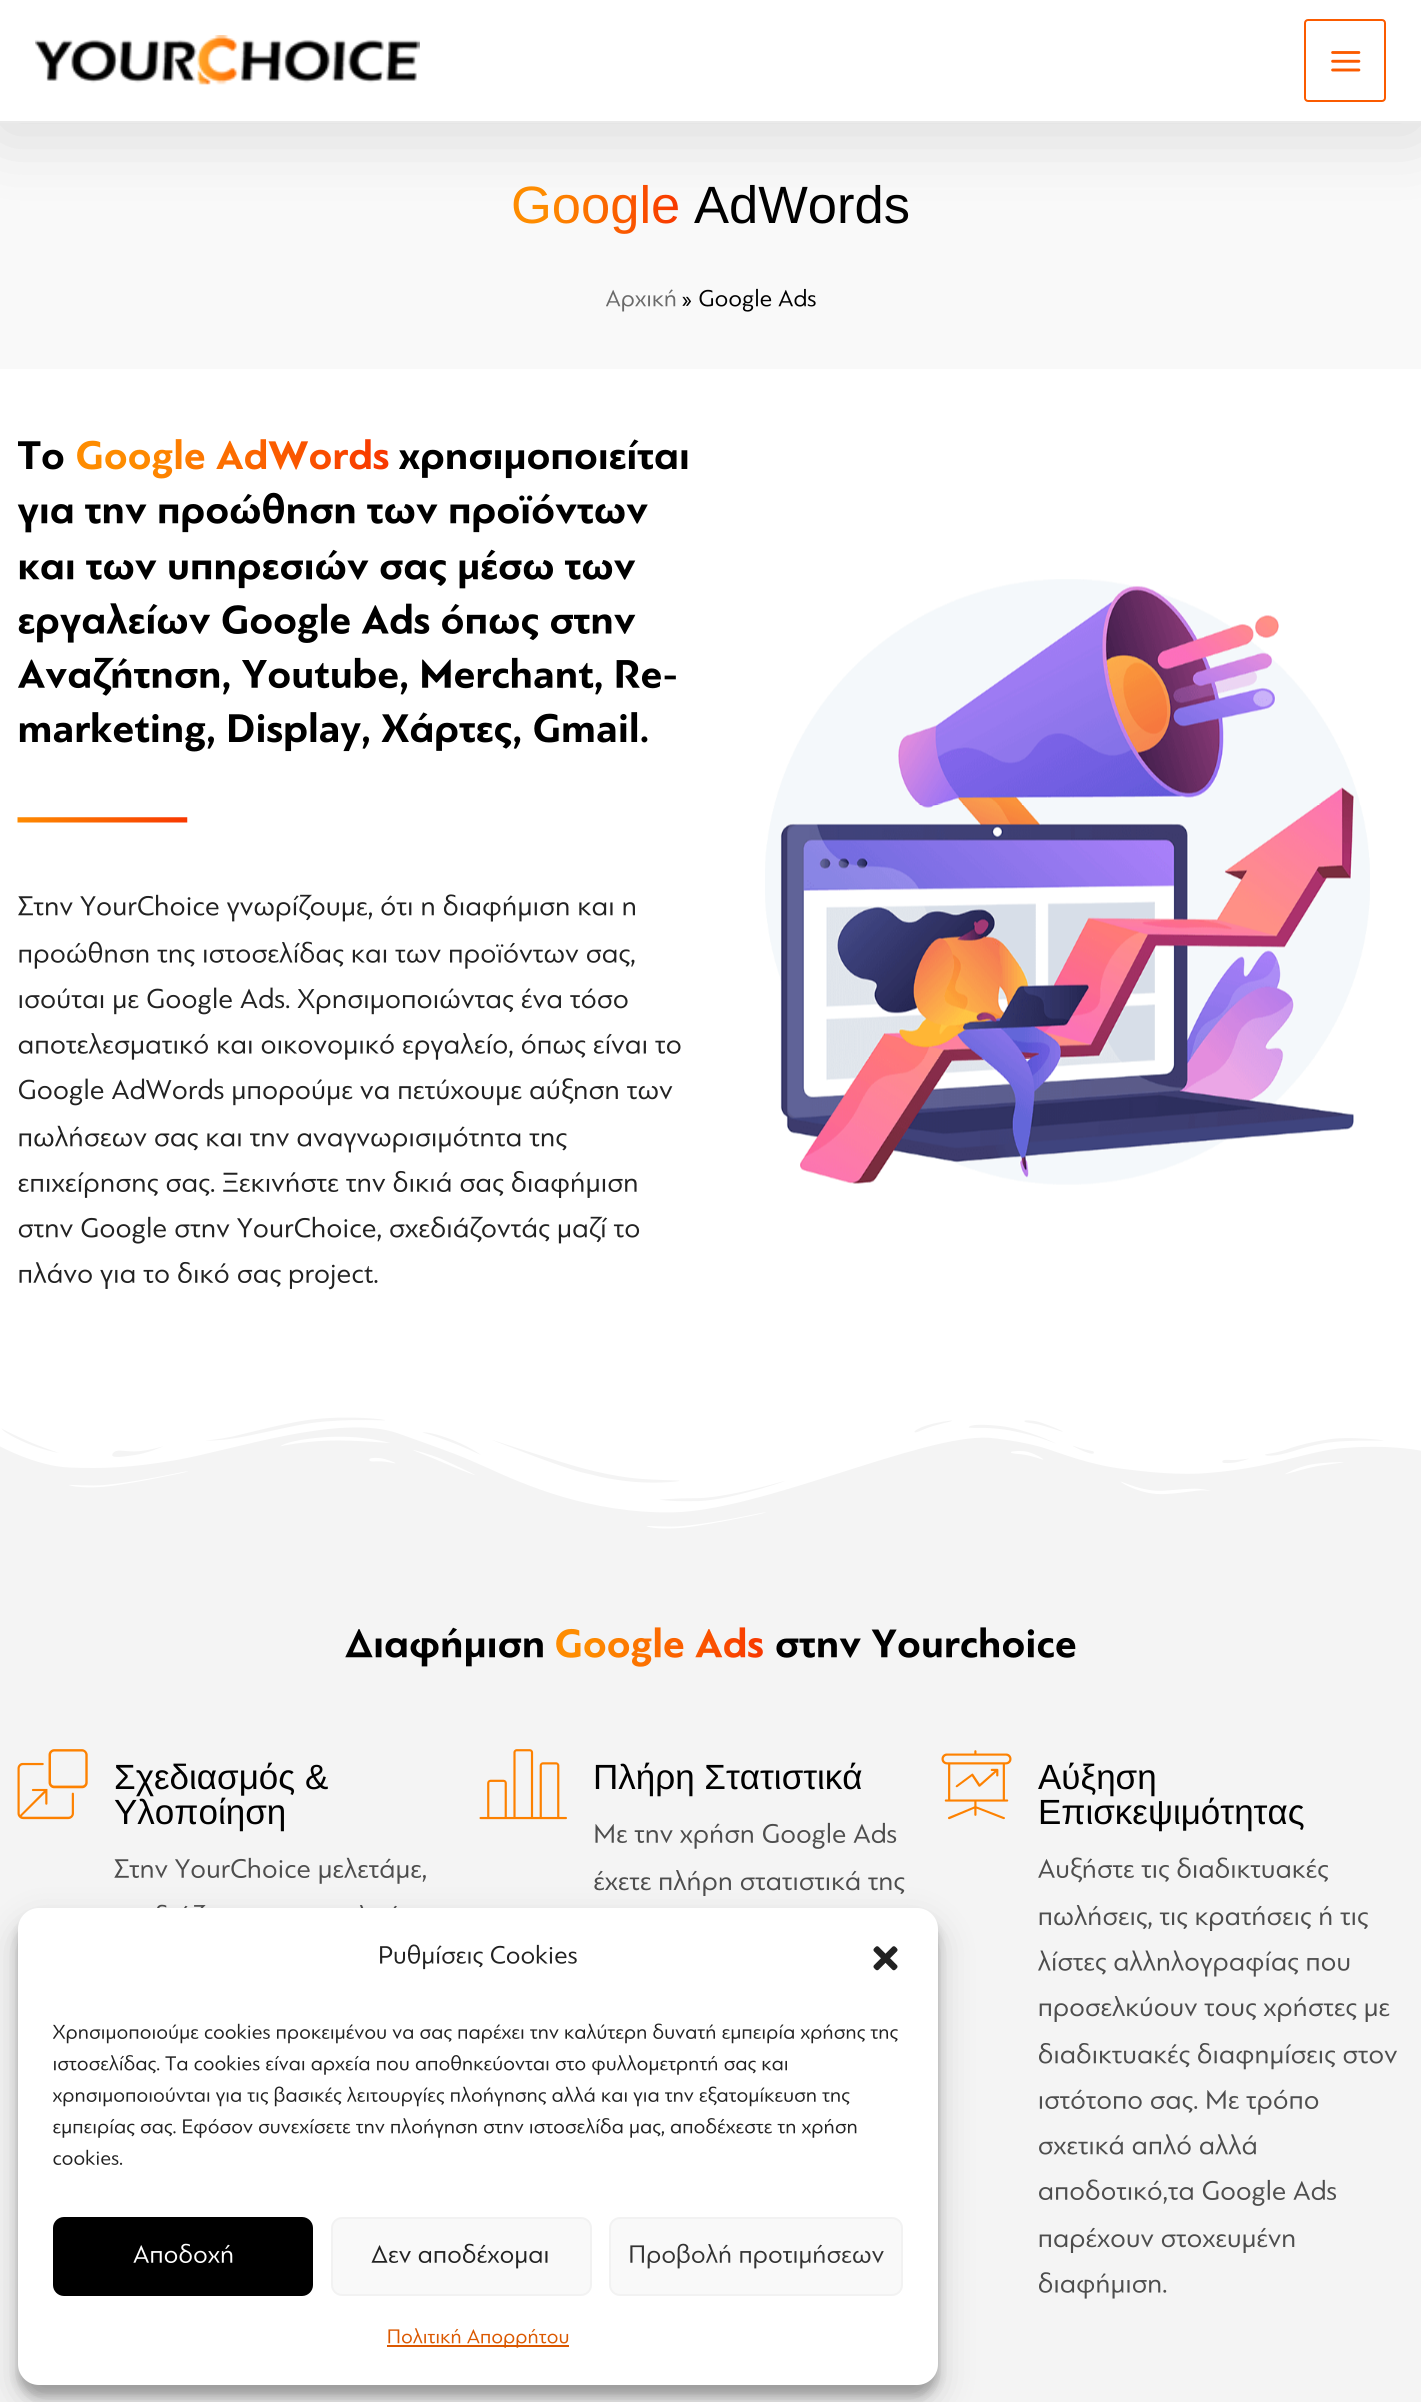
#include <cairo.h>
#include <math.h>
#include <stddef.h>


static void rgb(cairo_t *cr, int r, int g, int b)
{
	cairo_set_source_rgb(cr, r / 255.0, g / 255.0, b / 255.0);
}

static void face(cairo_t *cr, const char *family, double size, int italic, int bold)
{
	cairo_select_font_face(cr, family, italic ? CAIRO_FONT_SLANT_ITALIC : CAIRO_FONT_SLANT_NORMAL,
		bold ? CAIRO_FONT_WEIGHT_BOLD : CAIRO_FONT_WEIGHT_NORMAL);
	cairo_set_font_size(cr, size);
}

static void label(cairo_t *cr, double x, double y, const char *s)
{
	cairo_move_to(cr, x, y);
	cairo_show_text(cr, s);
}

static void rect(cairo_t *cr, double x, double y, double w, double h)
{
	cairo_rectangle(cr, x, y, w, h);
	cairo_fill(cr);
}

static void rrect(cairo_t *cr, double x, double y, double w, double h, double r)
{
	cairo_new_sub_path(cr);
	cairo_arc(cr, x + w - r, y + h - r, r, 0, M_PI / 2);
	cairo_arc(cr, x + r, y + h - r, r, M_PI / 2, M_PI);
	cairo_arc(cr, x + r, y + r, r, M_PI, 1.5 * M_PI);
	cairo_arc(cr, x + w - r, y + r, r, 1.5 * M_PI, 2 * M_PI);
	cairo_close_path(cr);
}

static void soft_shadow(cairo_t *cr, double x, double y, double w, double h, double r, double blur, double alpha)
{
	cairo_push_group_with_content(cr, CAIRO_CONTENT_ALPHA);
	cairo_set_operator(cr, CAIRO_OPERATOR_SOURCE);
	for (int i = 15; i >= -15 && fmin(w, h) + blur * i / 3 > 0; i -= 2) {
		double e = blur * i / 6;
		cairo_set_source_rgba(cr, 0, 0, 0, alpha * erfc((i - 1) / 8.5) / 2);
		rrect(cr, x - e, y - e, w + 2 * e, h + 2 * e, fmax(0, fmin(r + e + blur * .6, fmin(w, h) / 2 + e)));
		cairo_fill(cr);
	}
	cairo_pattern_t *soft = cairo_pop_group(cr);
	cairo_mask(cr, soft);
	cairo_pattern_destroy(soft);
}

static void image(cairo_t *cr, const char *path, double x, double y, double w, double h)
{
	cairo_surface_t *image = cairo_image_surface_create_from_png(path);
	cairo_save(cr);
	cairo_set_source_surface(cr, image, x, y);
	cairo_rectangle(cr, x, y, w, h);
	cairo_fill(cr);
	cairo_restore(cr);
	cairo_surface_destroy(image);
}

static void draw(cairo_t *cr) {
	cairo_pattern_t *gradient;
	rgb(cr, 255, 255, 255);
	cairo_paint(cr);
	rgb(cr, 249, 249, 249);
	rect(cr, 0, 123, 1421, 246);
	rgb(cr, 0, 0, 0);
	soft_shadow(cr, 0, 7, 1421, 123, 0, 38.5, 0.14);
	rgb(cr, 255, 255, 255);
	rect(cr, 0, 0, 1421, 121);
	rgb(cr, 234, 234, 234);
	rect(cr, 0, 121, 1421, 2);
	image(cr, "image0.png", 35, 35, 385, 50);
	rrect(cr, 1305, 20, 80, 81, 3);
	rgb(cr, 251, 91, 0);
	cairo_stroke(cr);
	image(cr, "image1.png", 1331, 51, 30, 21);
	face(cr, "Liberation Sans", 52.5, 0, 0);
	gradient = cairo_pattern_create_linear(511, 204, 680, 204);
	cairo_pattern_add_color_stop_rgba(gradient, 0.2, 0.996, 0.549, 0, 1);
	cairo_pattern_add_color_stop_rgba(gradient, 1, 0.973, 0.212, 0, 1);
	cairo_set_source(cr, gradient);
	cairo_pattern_destroy(gradient);
	label(cr, 511, 223, "Google");
	rgb(cr, 0, 0, 0);
	label(cr, 694, 223, "AdWords");
	image(cr, "image2.png", 606, 289, 70, 23);
	image(cr, "image3.png", 682, 296, 9, 10);
	image(cr, "image4.png", 699, 288, 117, 24);
	image(cr, "image5.png", 18, 441, 46, 29);
	image(cr, "image6.png", 77, 439, 312, 40);
	image(cr, "image7.png", 399, 439, 289, 40);
	image(cr, "image8.png", 17, 492, 631, 41);
	image(cr, "image9.png", 19, 549, 617, 40);
	image(cr, "image10.png", 18, 603, 618, 40);
	image(cr, "image11.png", 18, 657, 658, 39);
	image(cr, "image12.png", 19, 712, 629, 40);
	image(cr, "image13.png", 17, 817, 171, 6);
	image(cr, "image14.png", 18, 894, 617, 28);
	image(cr, "image15.png", 19, 941, 616, 28);
	image(cr, "image16.png", 19, 987, 609, 28);
	image(cr, "image17.png", 18, 1033, 663, 27);
	image(cr, "image18.png", 19, 1078, 654, 28);
	image(cr, "image19.png", 19, 1125, 548, 28);
	image(cr, "image20.png", 18, 1170, 619, 28);
	image(cr, "image21.png", 18, 1216, 622, 28);
	image(cr, "image22.png", 19, 1261, 359, 29);
	image(cr, "image23.png", 765, 579, 605, 606);
	rgb(cr, 244, 244, 244);
	rect(cr, 0, 1417, 1421, 985);
	image(cr, "image24.png", 0, 1402, 1421, 127);
	image(cr, "image25.png", 345, 1627, 198, 40);
	image(cr, "image26.png", 556, 1627, 207, 40);
	image(cr, "image27.png", 776, 1627, 300, 31);
	image(cr, "image28.png", 17, 1749, 71, 71);
	face(cr, "Liberation Sans", 35, 0, 0);
	rgb(cr, 0, 0, 0);
	label(cr, 114, 1789, "Σχεδιασμός &");
	label(cr, 114, 1824, "Υλοποίηση");
	image(cr, "image29.png", 114, 1857, 312, 27);
	image(cr, "image30.png", 157, 1904, 240, 4);
	image(cr, "image31.png", 479, 1749, 88, 71);
	label(cr, 593, 1789, "Πλήρη Στατιστικά");
	image(cr, "image32.png", 595, 1822, 302, 27);
	image(cr, "image33.png", 594, 1870, 311, 26);
	image(cr, "image34.png", 941, 1750, 71, 70);
	label(cr, 1038, 1789, "Αύξηση");
	label(cr, 1038, 1824, "Επισκεψιμότητας");
	image(cr, "image35.png", 1038, 1857, 290, 26);
	image(cr, "image36.png", 1039, 1905, 329, 26);
	image(cr, "image37.png", 1038, 1950, 312, 27);
	image(cr, "image38.png", 1039, 1996, 351, 26);
	image(cr, "image39.png", 1039, 2043, 358, 27);
	image(cr, "image40.png", 1039, 2089, 280, 26);
	image(cr, "image41.png", 1039, 2134, 217, 21);
	image(cr, "image42.png", 1039, 2179, 297, 27);
	image(cr, "image43.png", 1039, 2227, 256, 26);
	image(cr, "image44.png", 1039, 2272, 128, 27);
	rgb(cr, 0, 0, 0);
	soft_shadow(cr, 18, 1918, 920, 478, 21, 5, 0.23);
	soft_shadow(cr, 18, 1925, 920, 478, 21, 17.5, 0.19);
	rgb(cr, 255, 255, 255);
	rrect(cr, 18, 1908, 920, 477, 21);
	cairo_fill(cr);
	image(cr, "image45.png", 380, 1944, 197, 26);
	image(cr, "image46.png", 873, 1946, 25, 25);
	image(cr, "image47.png", 53, 2023, 845, 21);
	image(cr, "image48.png", 54, 2055, 733, 20);
	image(cr, "image49.png", 53, 2086, 797, 21);
	image(cr, "image50.png", 53, 2118, 804, 20);
	image(cr, "image51.png", 53, 2149, 70, 16);
	rgb(cr, 0, 0, 0);
	rrect(cr, 54, 2218, 258, 77, 10);
	cairo_fill_preserve(cr);
	cairo_stroke(cr);
	image(cr, "image52.png", 133, 2243, 100, 20);
	rgb(cr, 249, 249, 249);
	rrect(cr, 332, 2218, 259, 77, 10);
	cairo_fill_preserve(cr);
	rgb(cr, 242, 242, 242);
	cairo_stroke(cr);
	image(cr, "image53.png", 371, 2243, 177, 26);
	rgb(cr, 249, 249, 249);
	rrect(cr, 610, 2218, 292, 77, 10);
	cairo_fill_preserve(cr);
	rgb(cr, 242, 242, 242);
	cairo_stroke(cr);
	image(cr, "image54.png", 630, 2243, 254, 26);
	rgb(cr, 219, 88, 0);
	rect(cr, 387, 2345, 182, 2);
	image(cr, "image55.png", 388, 2328, 181, 20);
}

int main(void) {
	cairo_surface_t *surface = cairo_image_surface_create(CAIRO_FORMAT_RGB24, 1421, 2402);
	cairo_t *cr = cairo_create(surface);
	cairo_font_options_t *options = cairo_font_options_create();
	cairo_font_options_set_hint_metrics(options, CAIRO_HINT_METRICS_OFF);
	cairo_font_options_set_hint_style(options, CAIRO_HINT_STYLE_NONE);
	cairo_set_font_options(cr, options);
	cairo_set_miter_limit(cr, 4);
	draw(cr);
	cairo_surface_write_to_png(surface, "render.png");
	cairo_font_options_destroy(options);
	cairo_destroy(cr);
	cairo_surface_destroy(surface);
	return 0;
}
